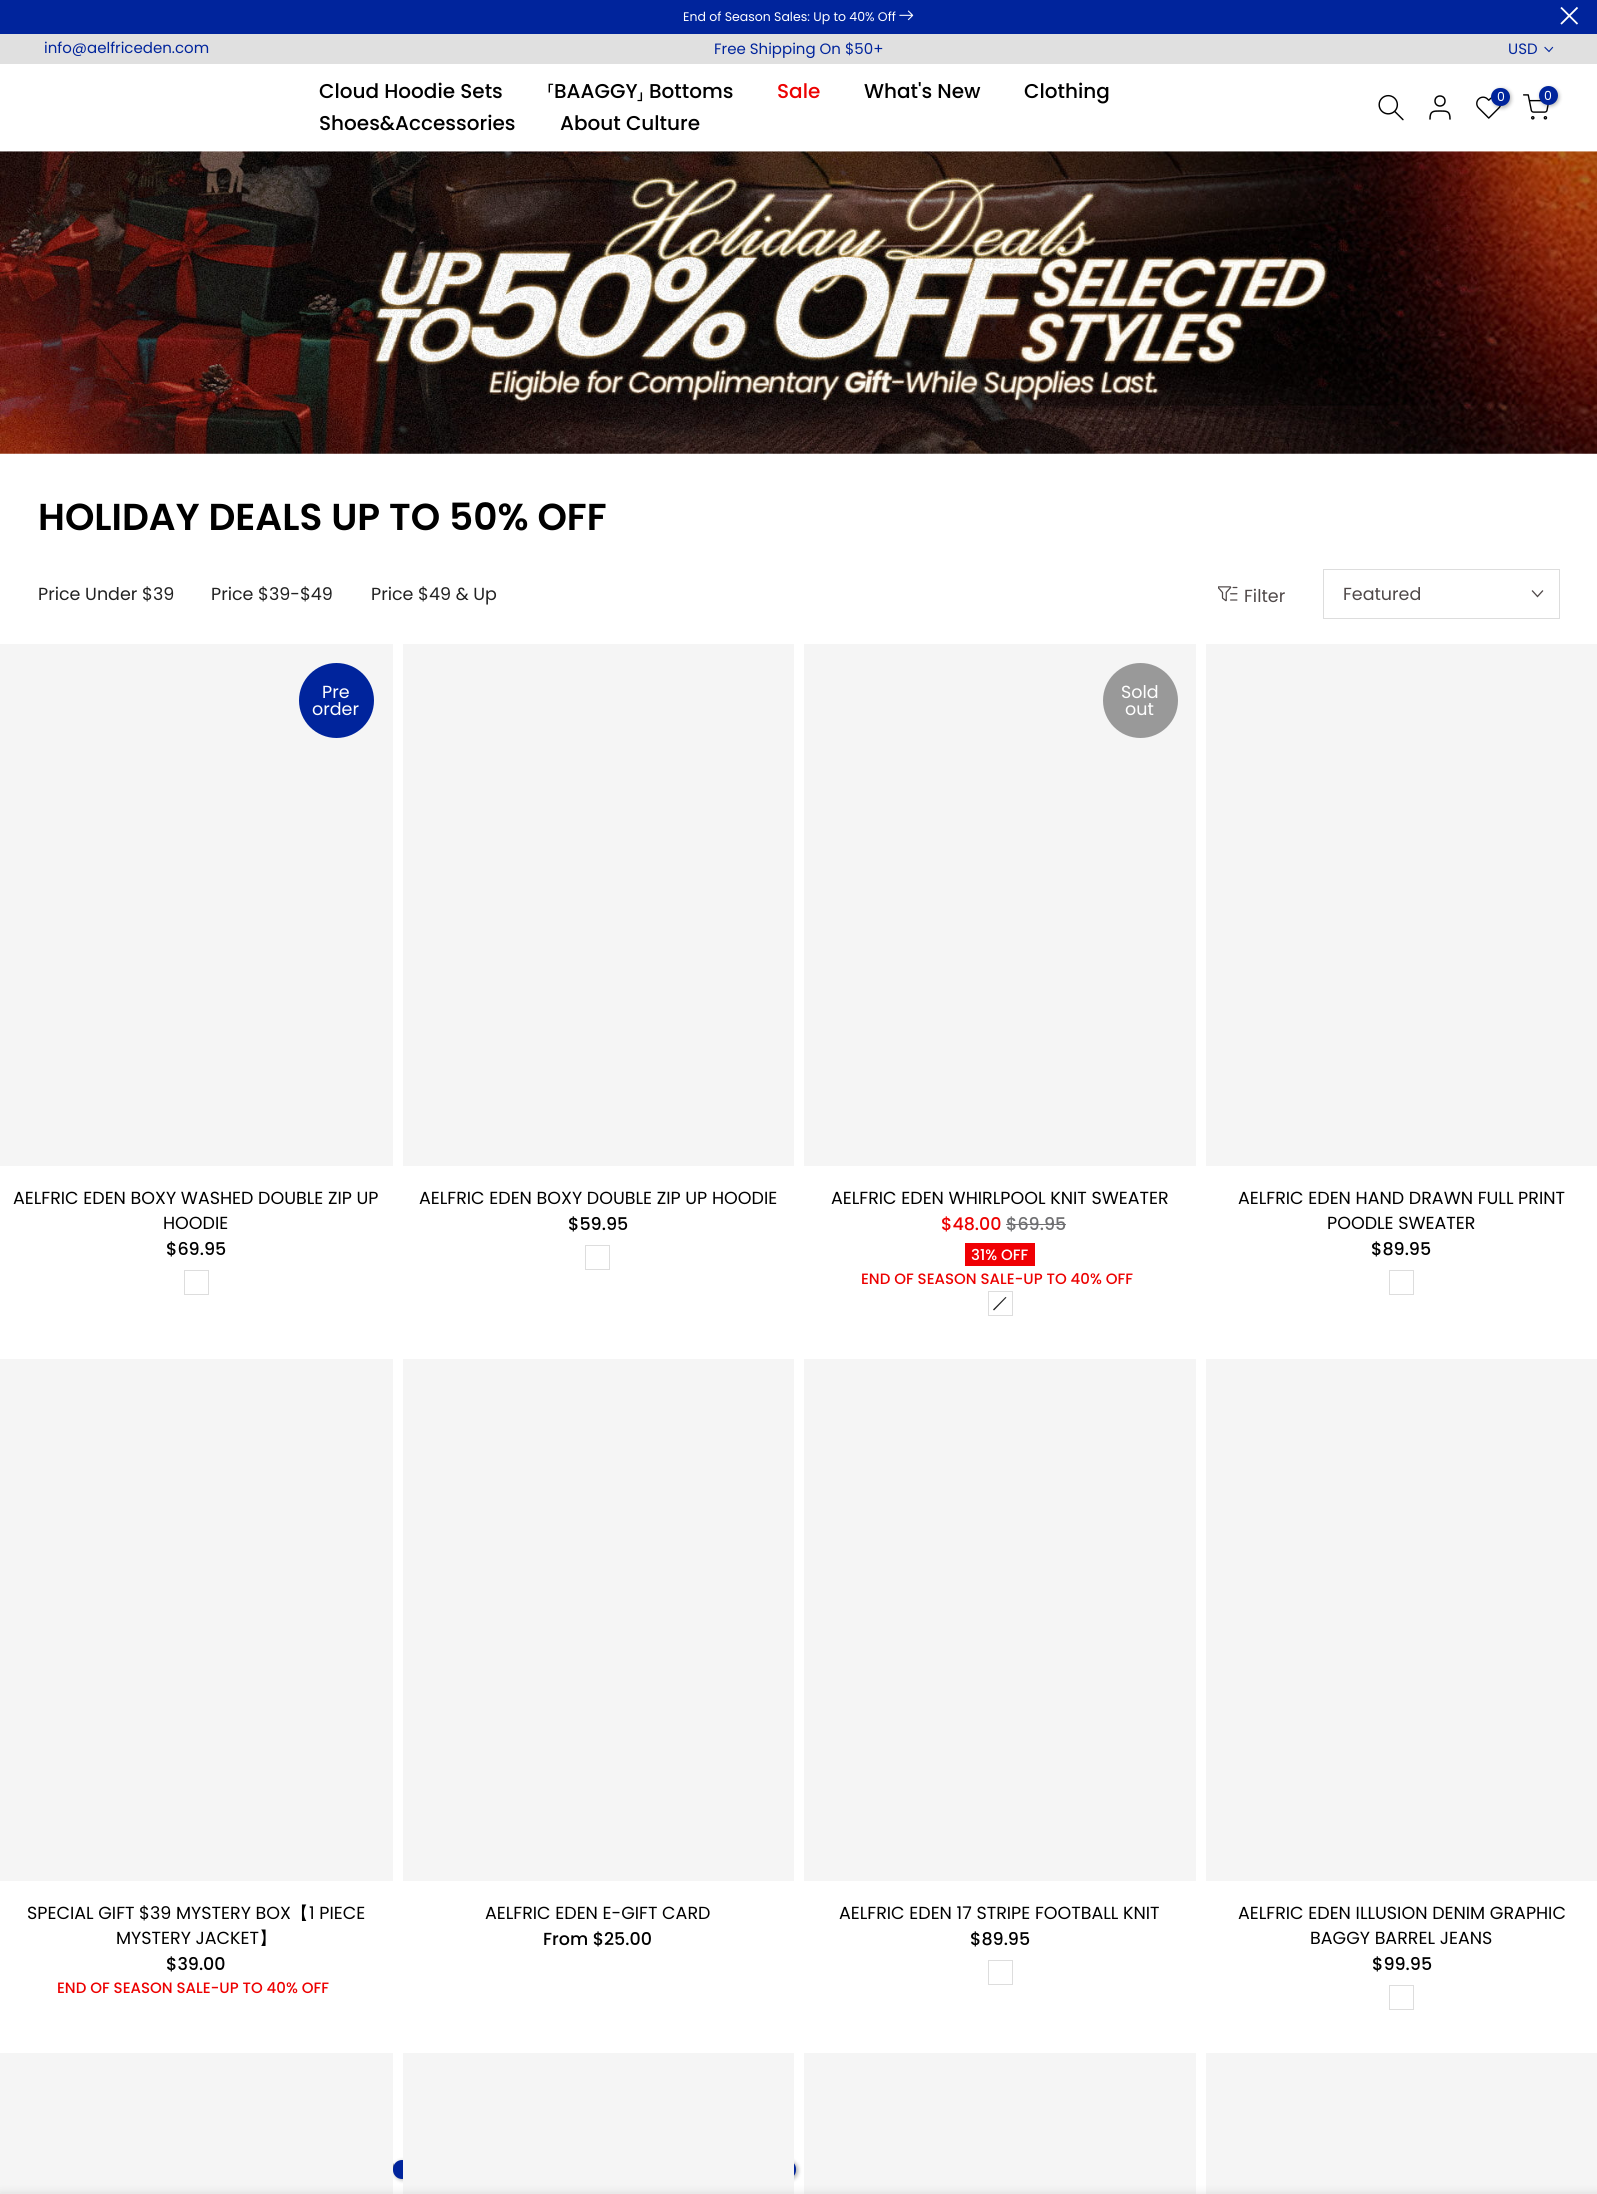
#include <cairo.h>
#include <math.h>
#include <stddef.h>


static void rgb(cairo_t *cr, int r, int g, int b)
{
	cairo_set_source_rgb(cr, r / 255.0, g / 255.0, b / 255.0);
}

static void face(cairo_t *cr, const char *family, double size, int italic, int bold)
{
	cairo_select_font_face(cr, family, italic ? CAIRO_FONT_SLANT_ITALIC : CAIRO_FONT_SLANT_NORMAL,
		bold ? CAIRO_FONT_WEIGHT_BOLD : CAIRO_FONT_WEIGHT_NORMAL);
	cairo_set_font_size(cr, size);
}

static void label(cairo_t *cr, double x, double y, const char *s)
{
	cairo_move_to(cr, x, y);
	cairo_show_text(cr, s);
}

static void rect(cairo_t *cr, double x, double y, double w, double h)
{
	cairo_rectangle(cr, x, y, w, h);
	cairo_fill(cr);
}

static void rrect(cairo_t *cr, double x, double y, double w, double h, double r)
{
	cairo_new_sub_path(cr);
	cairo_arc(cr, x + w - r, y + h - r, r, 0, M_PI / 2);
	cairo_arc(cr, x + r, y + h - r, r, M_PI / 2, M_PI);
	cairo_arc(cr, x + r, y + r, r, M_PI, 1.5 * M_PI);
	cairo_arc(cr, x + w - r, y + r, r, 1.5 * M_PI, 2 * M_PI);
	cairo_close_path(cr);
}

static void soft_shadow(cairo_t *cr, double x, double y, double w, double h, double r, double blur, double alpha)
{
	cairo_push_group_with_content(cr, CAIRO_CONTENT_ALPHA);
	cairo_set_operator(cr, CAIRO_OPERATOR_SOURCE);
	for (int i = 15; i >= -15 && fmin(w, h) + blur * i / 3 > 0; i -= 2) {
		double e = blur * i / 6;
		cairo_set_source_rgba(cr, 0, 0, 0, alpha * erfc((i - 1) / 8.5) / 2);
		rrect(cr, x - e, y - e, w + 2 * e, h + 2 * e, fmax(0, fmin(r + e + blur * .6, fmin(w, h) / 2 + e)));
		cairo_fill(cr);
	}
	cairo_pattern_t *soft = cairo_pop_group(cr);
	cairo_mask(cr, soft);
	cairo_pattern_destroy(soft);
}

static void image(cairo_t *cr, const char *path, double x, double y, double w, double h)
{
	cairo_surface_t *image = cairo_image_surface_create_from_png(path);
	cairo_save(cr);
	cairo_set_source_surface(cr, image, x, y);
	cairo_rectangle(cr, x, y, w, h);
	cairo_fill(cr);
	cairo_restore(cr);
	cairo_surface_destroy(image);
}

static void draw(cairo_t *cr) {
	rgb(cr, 255, 255, 255);
	cairo_paint(cr);
	rgb(cr, 0, 36, 156);
	rect(cr, 0, 0, 1597, 34);
	face(cr, "Poppins", 12.5, 0, 0);
	rgb(cr, 255, 255, 255);
	label(cr, 683, 21, "End of Season Sales: Up to 40% Off");
	image(cr, "image0.png", 899, 10, 15, 11);
	cairo_new_path(cr);
	cairo_move_to(cr, 1577.5, 7.5);
	cairo_line_to(cr, 1561, 24);
	cairo_move_to(cr, 1577.5, 24);
	cairo_line_to(cr, 1561, 7.5);
	cairo_set_line_width(cr, 1.8);
	cairo_stroke(cr);
	rgb(cr, 224, 224, 224);
	rect(cr, 0, 34, 1597, 30);
	face(cr, "Poppins", 15, 0, 0);
	rgb(cr, 0, 36, 156);
	label(cr, 44, 53, "info@aelfriceden.com");
	label(cr, 714, 54, "Free Shipping On $50+");
	label(cr, 1508, 54, "USD");
	cairo_new_path(cr);
	cairo_move_to(cr, 1552.5, 47.5);
	cairo_line_to(cr, 1549, 51.5);
	cairo_line_to(cr, 1545, 47.5);
	cairo_set_line_width(cr, 1.1);
	cairo_set_line_cap(cr, CAIRO_LINE_CAP_SQUARE);
	cairo_stroke(cr);
	face(cr, "Poppins Medium", 20, 0, 0);
	rgb(cr, 0, 0, 0);
	label(cr, 319, 98, "Cloud Hoodie Sets");
	face(cr, "Noto Sans Medium", 20, 0, 0);
	label(cr, 547, 98, "⸢");
	face(cr, "Poppins Medium", 20, 0, 0);
	label(cr, 554, 98, "BAAGGY");
	face(cr, "Noto Sans Medium", 20, 0, 0);
	label(cr, 637, 98, "⸥");
	face(cr, "Poppins Medium", 20, 0, 0);
	label(cr, 649, 98, "Bottoms");
	rgb(cr, 236, 1, 1);
	label(cr, 777, 98, "Sale");
	rgb(cr, 0, 0, 0);
	label(cr, 864, 98, "What's New");
	label(cr, 1024, 98, "Clothing");
	label(cr, 319, 130, "Shoes&Accessories");
	label(cr, 560, 130, "About Culture");
	image(cr, "image1.png", 1378, 94, 26, 27);
	cairo_arc(cr, 1440, 101, 5, 0, 2 * M_PI);
	cairo_set_line_width(cr, 1.5);
	cairo_set_line_cap(cr, CAIRO_LINE_CAP_BUTT);
	cairo_stroke(cr);
	cairo_new_path(cr);
	cairo_move_to(cr, 1450, 119);
	cairo_curve_to(cr, 1450, 111, 1447, 111, 1440, 111);
	cairo_curve_to(cr, 1433, 111, 1430, 111, 1430, 119);
	cairo_set_line_cap(cr, CAIRO_LINE_CAP_ROUND);
	cairo_set_line_join(cr, CAIRO_LINE_JOIN_ROUND);
	cairo_stroke(cr);
	image(cr, "image2.png", 1476, 96, 26, 23);
	rgb(cr, 0, 0, 0);
	soft_shadow(cr, 1493, 89, 18, 19, 9, 2, 0.3);
	rgb(cr, 0, 36, 156);
	rrect(cr, 1491, 88, 19, 18, 9);
	cairo_fill(cr);
	face(cr, "Poppins", 12.5, 0, 0);
	rgb(cr, 255, 255, 255);
	label(cr, 1497, 101, "0");
	image(cr, "image3.png", 1523, 94, 26, 26);
	rgb(cr, 0, 0, 0);
	soft_shadow(cr, 1540, 88, 19, 18, 9, 2, 0.3);
	rgb(cr, 0, 36, 156);
	cairo_arc(cr, 1548.5, 95.5, 9.5, 0, 2 * M_PI);
	cairo_fill(cr);
	rgb(cr, 255, 255, 255);
	label(cr, 1544, 100, "0");
	image(cr, "image4.png", 0, 151, 1597, 303);
	face(cr, "Poppins SemiBold", 37.5, 0, 0);
	rgb(cr, 0, 0, 0);
	label(cr, 38, 530, "HOLIDAY DEALS UP TO 50% OFF");
	face(cr, "Poppins", 17.5, 0, 0);
	rgb(cr, 34, 34, 34);
	label(cr, 38, 600, "Price Under $39");
	label(cr, 211, 600, "Price $39-$49");
	label(cr, 371, 600, "Price $49 & Up");
	image(cr, "image5.png", 1218, 586, 20, 16);
	rgb(cr, 79, 72, 72);
	label(cr, 1244, 602, "Filter");
	cairo_rectangle(cr, 1323.5, 569.5, 236, 49);
	rgb(cr, 221, 221, 221);
	cairo_set_line_width(cr, 1);
	cairo_set_line_cap(cr, CAIRO_LINE_CAP_BUTT);
	cairo_set_line_join(cr, CAIRO_LINE_JOIN_MITER);
	cairo_stroke(cr);
	rgb(cr, 79, 72, 72);
	label(cr, 1343, 600, "Featured");
	cairo_new_path(cr);
	cairo_move_to(cr, 1542.5, 591);
	cairo_line_to(cr, 1537.5, 596.5);
	cairo_line_to(cr, 1532.5, 591);
	cairo_set_line_width(cr, 1.3);
	cairo_set_line_cap(cr, CAIRO_LINE_CAP_SQUARE);
	cairo_stroke(cr);
	rgb(cr, 245, 245, 245);
	rect(cr, 0, 644, 393, 522);
	rgb(cr, 0, 36, 156);
	cairo_arc(cr, 336.5, 700.5, 37.5, 0, 2 * M_PI);
	cairo_fill(cr);
	rgb(cr, 255, 255, 255);
	label(cr, 322, 698, "Pre");
	label(cr, 312, 715, "order");
	rgb(cr, 0, 0, 0);
	label(cr, 13, 1204, "AELFRIC EDEN BOXY WASHED DOUBLE ZIP UP");
	label(cr, 163, 1229, "HOODIE");
	face(cr, "Poppins Medium", 17.5, 0, 0);
	label(cr, 166, 1255, "$69.95");
	cairo_rectangle(cr, 184.5, 1270.5, 24, 24);
	rgb(cr, 221, 221, 221);
	cairo_set_line_width(cr, 1);
	cairo_set_line_cap(cr, CAIRO_LINE_CAP_BUTT);
	cairo_stroke(cr);
	rgb(cr, 245, 245, 245);
	rect(cr, 403, 644, 391, 522);
	face(cr, "Poppins", 17.5, 0, 0);
	rgb(cr, 0, 0, 0);
	label(cr, 419, 1204, "AELFRIC EDEN BOXY DOUBLE ZIP UP HOODIE");
	face(cr, "Poppins Medium", 17.5, 0, 0);
	label(cr, 568, 1230, "$59.95");
	cairo_rectangle(cr, 585.5, 1245.5, 24, 24);
	rgb(cr, 221, 221, 221);
	cairo_stroke(cr);
	rgb(cr, 245, 245, 245);
	rect(cr, 804, 644, 392, 522);
	rgb(cr, 153, 153, 153);
	cairo_arc(cr, 1140.5, 700.5, 37.5, 0, 2 * M_PI);
	cairo_fill(cr);
	face(cr, "Poppins", 17.5, 0, 0);
	rgb(cr, 255, 255, 255);
	label(cr, 1121, 698, "Sold");
	label(cr, 1125, 715, "out");
	rgb(cr, 0, 0, 0);
	label(cr, 831, 1204, "AELFRIC EDEN WHIRLPOOL KNIT SWEATER");
	face(cr, "Poppins Medium", 17.5, 0, 0);
	rgb(cr, 236, 1, 1);
	label(cr, 941, 1230, "$48.00");
	rgb(cr, 112, 112, 114);
	label(cr, 1006, 1230, "$69.95");
	rect(cr, 1006, 1224, 60, 1);
	rgb(cr, 240, 0, 4);
	rect(cr, 965, 1243, 70, 23);
	face(cr, "Poppins Medium", 15, 0, 0);
	rgb(cr, 255, 255, 255);
	label(cr, 971, 1260, "31% OFF");
	rgb(cr, 236, 1, 1);
	label(cr, 861, 1284, "END OF SEASON SALE-UP TO 40% OFF");
	cairo_rectangle(cr, 988.5, 1291.5, 24, 24);
	rgb(cr, 221, 221, 221);
	cairo_stroke(cr);
	rgb(cr, 34, 34, 34);
	cairo_new_path(cr);
	cairo_move_to(cr, 1006.5, 1297.5);
	cairo_line_to(cr, 994, 1310.5);
	cairo_line_to(cr, 993, 1309.5);
	cairo_line_to(cr, 1005.5, 1297);
	cairo_close_path(cr);
	cairo_fill(cr);
	rgb(cr, 245, 245, 245);
	rect(cr, 1206, 644, 391, 522);
	face(cr, "Poppins", 17.5, 0, 0);
	rgb(cr, 0, 0, 0);
	label(cr, 1238, 1204, "AELFRIC EDEN HAND DRAWN FULL PRINT");
	label(cr, 1327, 1229, "POODLE SWEATER");
	face(cr, "Poppins Medium", 17.5, 0, 0);
	label(cr, 1371, 1255, "$89.95");
	cairo_rectangle(cr, 1389.5, 1270.5, 24, 24);
	rgb(cr, 221, 221, 221);
	cairo_stroke(cr);
	rgb(cr, 245, 245, 245);
	rect(cr, 0, 1359, 393, 522);
	face(cr, "Poppins", 17.5, 0, 0);
	rgb(cr, 0, 0, 0);
	label(cr, 27, 1919, "SPECIAL GIFT $39 MYSTERY BOX");
	face(cr, "WenQuanYi Zen Hei Medium", 17.5, 0, 0);
	label(cr, 291, 1919, "【");
	face(cr, "Poppins", 17.5, 0, 0);
	label(cr, 309, 1919, "1 PIECE");
	label(cr, 116, 1944, "MYSTERY JACKET");
	face(cr, "WenQuanYi Zen Hei Medium", 17.5, 0, 0);
	label(cr, 259, 1944, "】");
	face(cr, "Poppins Medium", 17.5, 0, 0);
	label(cr, 166, 1970, "$39.00");
	face(cr, "Poppins Medium", 15, 0, 0);
	rgb(cr, 236, 1, 1);
	label(cr, 57, 1993, "END OF SEASON SALE-UP TO 40% OFF");
	rgb(cr, 245, 245, 245);
	rect(cr, 403, 1359, 391, 522);
	face(cr, "Poppins", 17.5, 0, 0);
	rgb(cr, 0, 0, 0);
	label(cr, 485, 1919, "AELFRIC EDEN E-GIFT CARD");
	face(cr, "Poppins Medium", 17.5, 0, 0);
	label(cr, 543, 1945, "From $25.00");
	rgb(cr, 245, 245, 245);
	rect(cr, 804, 1359, 392, 522);
	face(cr, "Poppins", 17.5, 0, 0);
	rgb(cr, 0, 0, 0);
	label(cr, 839, 1919, "AELFRIC EDEN 17 STRIPE FOOTBALL KNIT");
	face(cr, "Poppins Medium", 17.5, 0, 0);
	label(cr, 970, 1945, "$89.95");
	cairo_rectangle(cr, 988.5, 1960.5, 24, 24);
	rgb(cr, 221, 221, 221);
	cairo_stroke(cr);
	rgb(cr, 245, 245, 245);
	rect(cr, 1206, 1359, 391, 522);
	face(cr, "Poppins", 17.5, 0, 0);
	rgb(cr, 0, 0, 0);
	label(cr, 1238, 1919, "AELFRIC EDEN ILLUSION DENIM GRAPHIC");
	label(cr, 1310, 1944, "BAGGY BARREL JEANS");
	face(cr, "Poppins Medium", 17.5, 0, 0);
	label(cr, 1372, 1970, "$99.95");
	cairo_rectangle(cr, 1389.5, 1985.5, 24, 24);
	rgb(cr, 221, 221, 221);
	cairo_stroke(cr);
	image(cr, "image6.png", 393, 2163, 1, 8);
	rgb(cr, 0, 0, 0);
	soft_shadow(cr, 394, 2161, 19, 19, 9.5, 2, 0.3);
	rgb(cr, 245, 245, 245);
	rect(cr, 0, 2053, 393, 141);
	rgb(cr, 0, 36, 156);
	rrect(cr, 393, 2160, 18, 19, 9);
	cairo_fill(cr);
	rgb(cr, 0, 0, 0);
	soft_shadow(cr, 779, 2161, 19, 19, 9.5, 2, 0.3);
	rgb(cr, 0, 36, 156);
	rrect(cr, 778, 2160, 18, 19, 9);
	cairo_fill(cr);
	rgb(cr, 245, 245, 245);
	rect(cr, 403, 2053, 391, 141);
	rect(cr, 804, 2053, 392, 141);
	rect(cr, 1206, 2053, 391, 141);
	rgb(cr, 0, 0, 0);
	soft_shadow(cr, 0, 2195, 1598, 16, 0, 5.5, 0.14);
}

int main(void) {
	cairo_surface_t *surface = cairo_image_surface_create(CAIRO_FORMAT_RGB24, 1597, 2194);
	cairo_t *cr = cairo_create(surface);
	cairo_font_options_t *options = cairo_font_options_create();
	cairo_font_options_set_hint_metrics(options, CAIRO_HINT_METRICS_OFF);
	cairo_font_options_set_hint_style(options, CAIRO_HINT_STYLE_NONE);
	cairo_set_font_options(cr, options);
	cairo_set_miter_limit(cr, 4);
	draw(cr);
	cairo_surface_write_to_png(surface, "render.png");
	cairo_font_options_destroy(options);
	cairo_destroy(cr);
	cairo_surface_destroy(surface);
	return 0;
}
